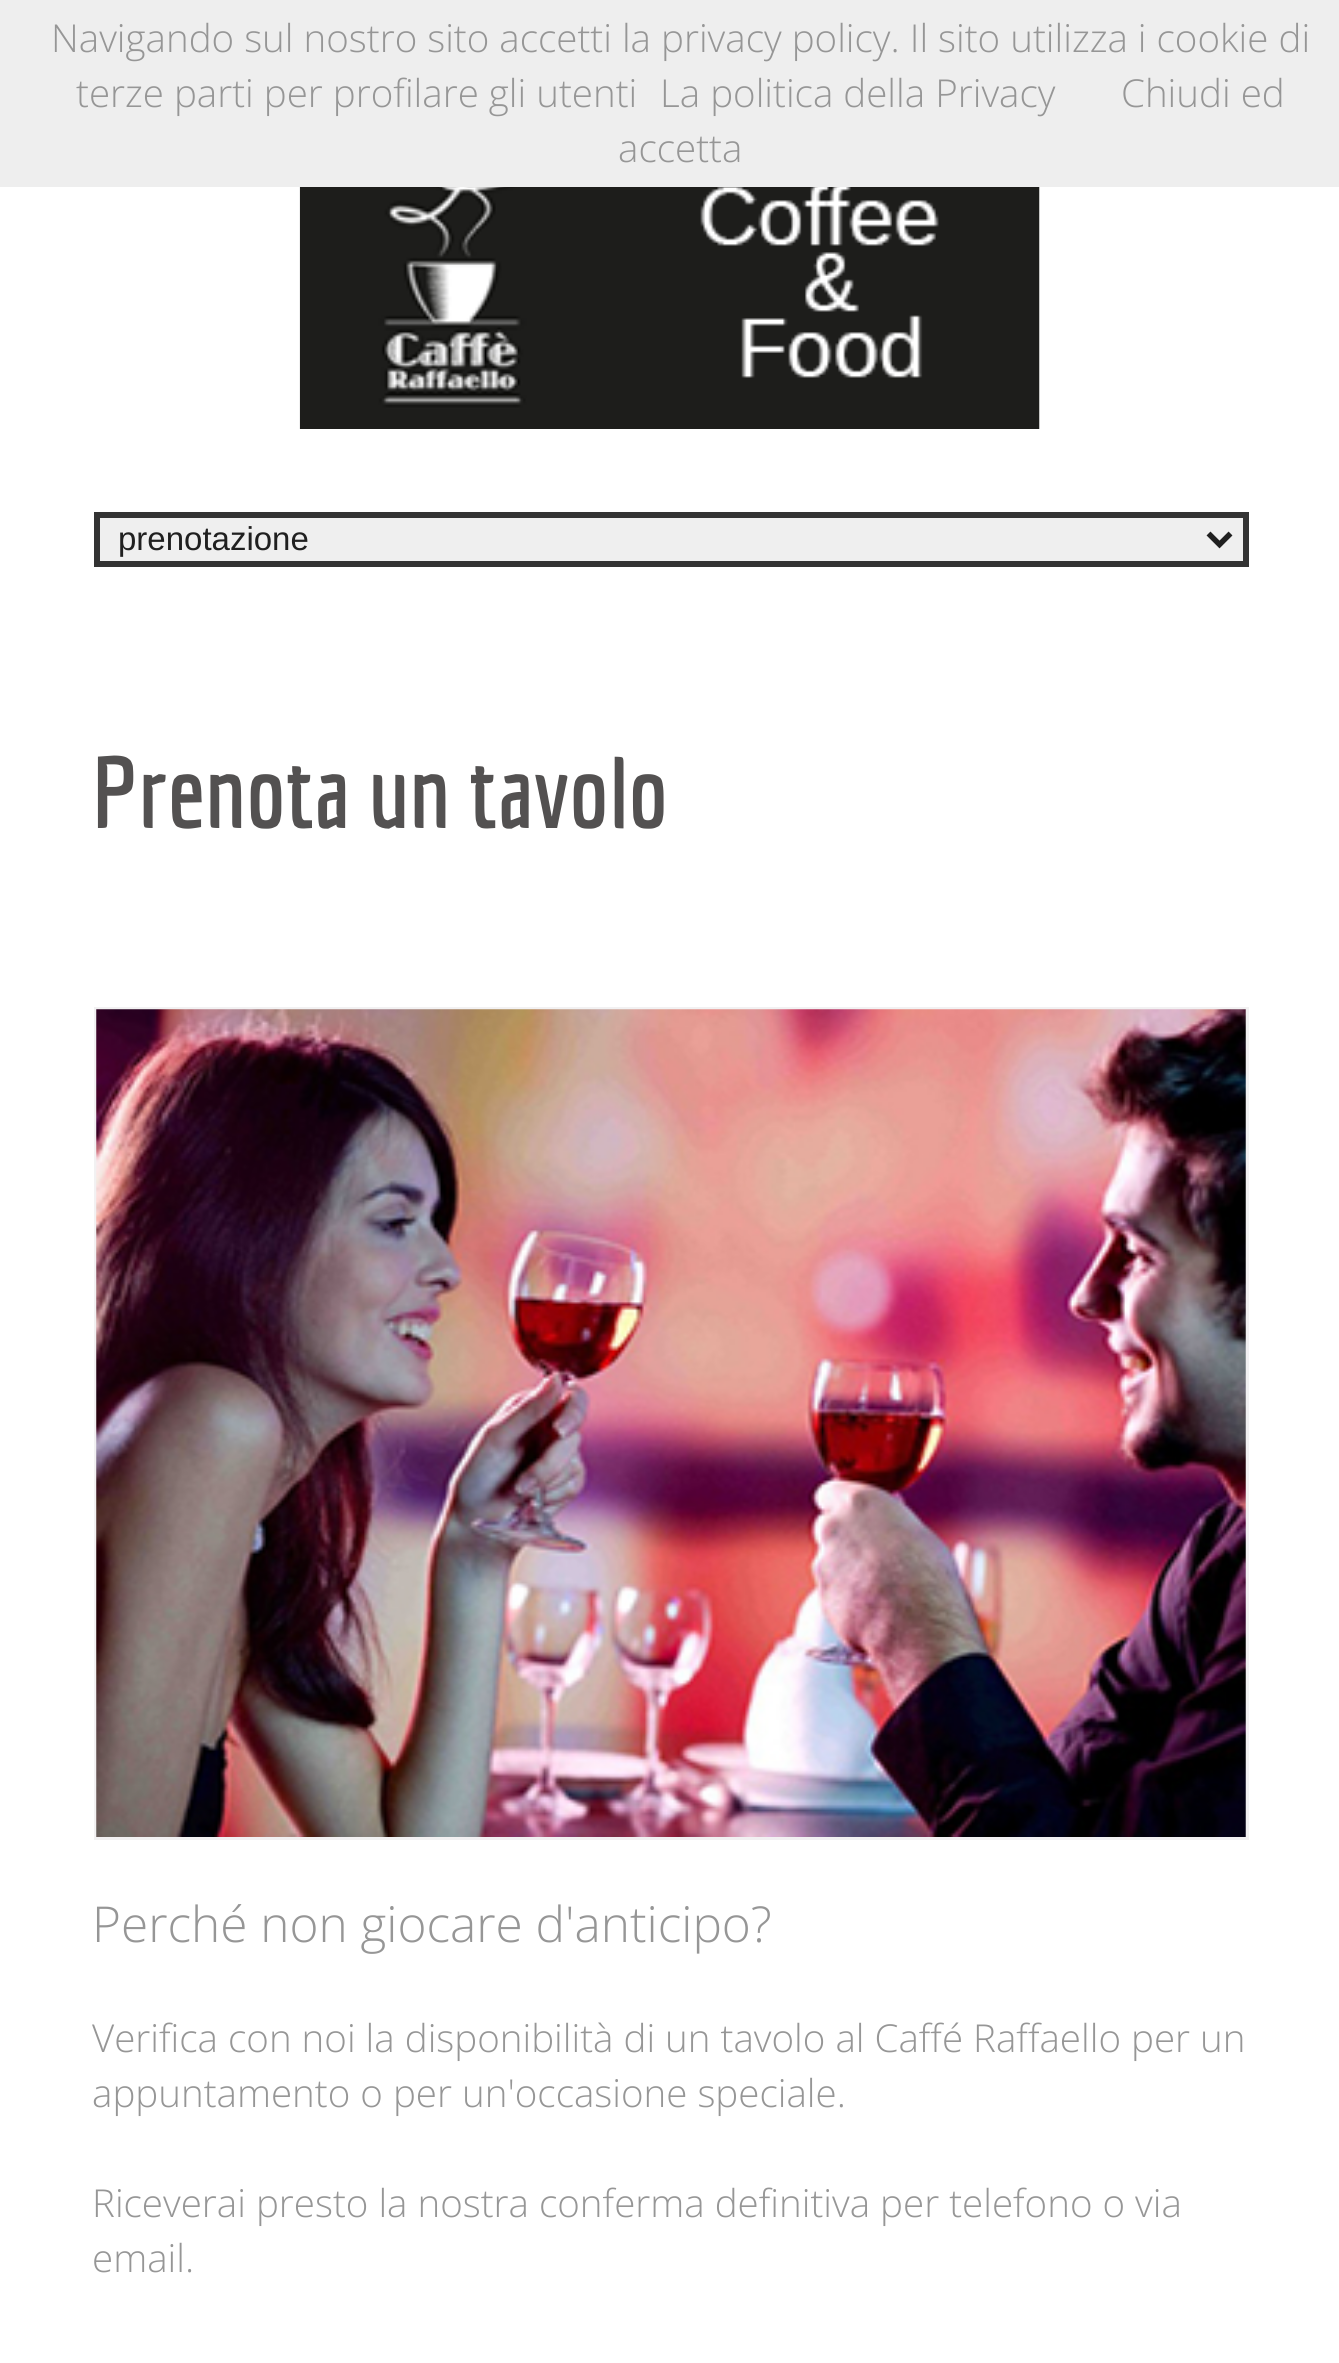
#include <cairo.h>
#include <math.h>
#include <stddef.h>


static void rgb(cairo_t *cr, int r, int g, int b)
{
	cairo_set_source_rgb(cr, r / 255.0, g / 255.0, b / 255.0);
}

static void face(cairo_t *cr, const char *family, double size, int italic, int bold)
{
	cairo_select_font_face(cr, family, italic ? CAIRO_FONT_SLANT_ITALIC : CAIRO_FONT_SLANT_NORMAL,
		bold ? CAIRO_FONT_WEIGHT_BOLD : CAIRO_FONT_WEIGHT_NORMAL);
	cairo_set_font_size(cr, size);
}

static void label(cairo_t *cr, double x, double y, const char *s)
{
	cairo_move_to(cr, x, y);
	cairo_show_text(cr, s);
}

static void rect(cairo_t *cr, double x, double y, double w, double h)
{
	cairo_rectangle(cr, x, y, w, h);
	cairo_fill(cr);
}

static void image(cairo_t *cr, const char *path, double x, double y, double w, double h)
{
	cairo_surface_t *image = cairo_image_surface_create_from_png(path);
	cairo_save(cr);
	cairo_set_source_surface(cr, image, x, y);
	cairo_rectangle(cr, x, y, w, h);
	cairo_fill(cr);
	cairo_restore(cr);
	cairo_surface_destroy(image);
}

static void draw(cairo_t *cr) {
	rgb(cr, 255, 255, 255);
	cairo_paint(cr);
	rgb(cr, 238, 238, 238);
	rect(cr, 0, 0, 1339, 187);
	face(cr, "Open Sans Light", 38.5, 0, 0);
	rgb(cr, 150, 150, 150);
	label(cr, 51, 52, "Navigando sul nostro sito accetti la privacy policy. Il sito utilizza i cookie di");
	label(cr, 76, 107, "terze parti per profilare gli utenti");
	label(cr, 660, 107, "La politica della Privacy");
	label(cr, 1121, 107, "Chiudi ed");
	label(cr, 618, 162, "accetta");
	image(cr, "image0.png", 299, 187, 741, 242);
	rgb(cr, 239, 239, 239);
	cairo_rectangle(cr, 97, 515, 1149, 49);
	cairo_fill_preserve(cr);
	rgb(cr, 51, 51, 51);
	cairo_set_line_width(cr, 6);
	cairo_stroke(cr);
	cairo_new_path(cr);
	cairo_move_to(cr, 1208.5, 533.5);
	cairo_line_to(cr, 1219.5, 544.5);
	cairo_line_to(cr, 1230.5, 533.5);
	rgb(cr, 32, 32, 32);
	cairo_set_line_width(cr, 5.5);
	cairo_stroke(cr);
	face(cr, "Liberation Sans", 33, 0, 0);
	label(cr, 118, 550, "prenotazione");
	face(cr, "Economica", 99, 0, 1);
	rgb(cr, 83, 81, 81);
	label(cr, 92, 828, "Prenota un tavolo");
	cairo_rectangle(cr, 95.5, 1008.5, 1152, 830);
	rgb(cr, 242, 241, 242);
	cairo_set_line_width(cr, 3);
	cairo_stroke(cr);
	image(cr, "image1.png", 96, 1009, 1150, 828);
	face(cr, "Open Sans Light", 49.5, 0, 0);
	rgb(cr, 150, 150, 150);
	label(cr, 92, 1942, "Perché non giocare d'anticipo?");
	face(cr, "Open Sans Light", 38.5, 0, 0);
	label(cr, 92, 2052, "Verifica con noi la disponibilità di un tavolo al Caffé Raffaello per un");
	label(cr, 92, 2107, "appuntamento o per un'occasione speciale.");
	label(cr, 92, 2217, "Riceverai presto la nostra conferma definitiva per telefono o via");
	label(cr, 92, 2272, "email.");
}

int main(void) {
	cairo_surface_t *surface = cairo_image_surface_create(CAIRO_FORMAT_RGB24, 1339, 2363);
	cairo_t *cr = cairo_create(surface);
	cairo_font_options_t *options = cairo_font_options_create();
	cairo_font_options_set_hint_metrics(options, CAIRO_HINT_METRICS_OFF);
	cairo_font_options_set_hint_style(options, CAIRO_HINT_STYLE_NONE);
	cairo_set_font_options(cr, options);
	cairo_set_miter_limit(cr, 4);
	draw(cr);
	cairo_surface_write_to_png(surface, "render.png");
	cairo_font_options_destroy(options);
	cairo_destroy(cr);
	cairo_surface_destroy(surface);
	return 0;
}
